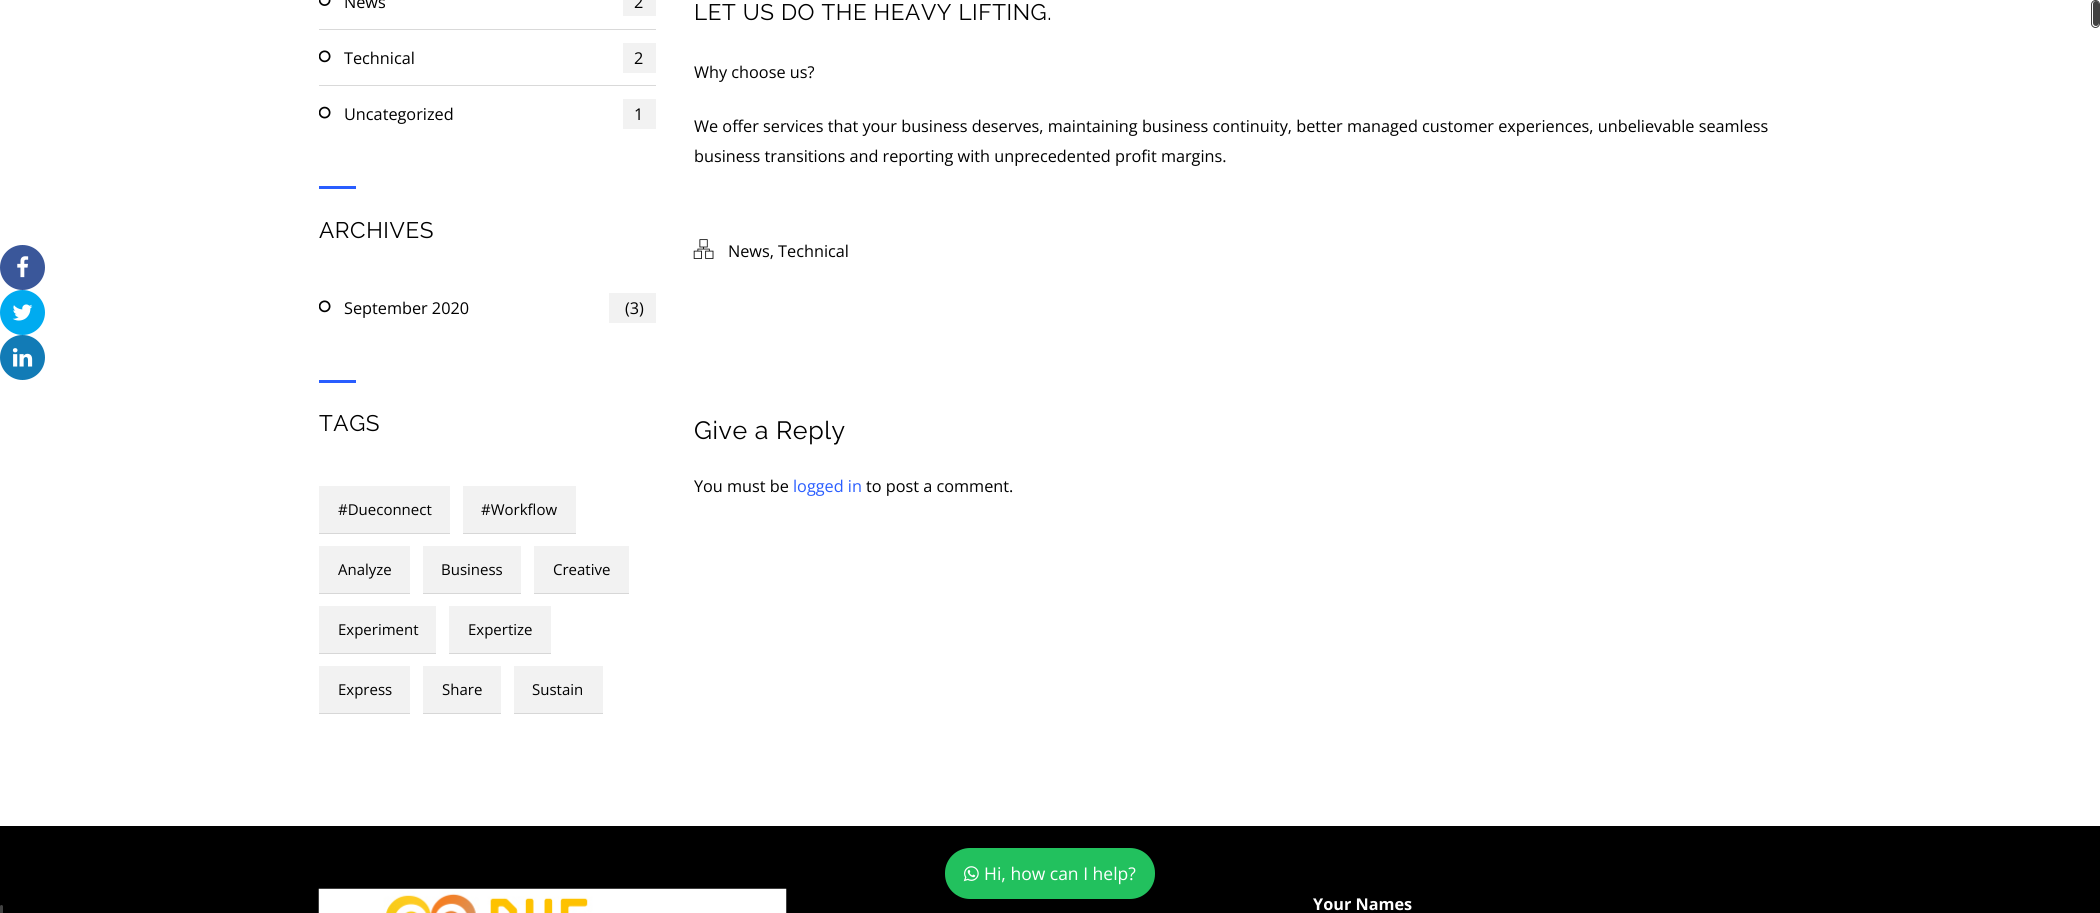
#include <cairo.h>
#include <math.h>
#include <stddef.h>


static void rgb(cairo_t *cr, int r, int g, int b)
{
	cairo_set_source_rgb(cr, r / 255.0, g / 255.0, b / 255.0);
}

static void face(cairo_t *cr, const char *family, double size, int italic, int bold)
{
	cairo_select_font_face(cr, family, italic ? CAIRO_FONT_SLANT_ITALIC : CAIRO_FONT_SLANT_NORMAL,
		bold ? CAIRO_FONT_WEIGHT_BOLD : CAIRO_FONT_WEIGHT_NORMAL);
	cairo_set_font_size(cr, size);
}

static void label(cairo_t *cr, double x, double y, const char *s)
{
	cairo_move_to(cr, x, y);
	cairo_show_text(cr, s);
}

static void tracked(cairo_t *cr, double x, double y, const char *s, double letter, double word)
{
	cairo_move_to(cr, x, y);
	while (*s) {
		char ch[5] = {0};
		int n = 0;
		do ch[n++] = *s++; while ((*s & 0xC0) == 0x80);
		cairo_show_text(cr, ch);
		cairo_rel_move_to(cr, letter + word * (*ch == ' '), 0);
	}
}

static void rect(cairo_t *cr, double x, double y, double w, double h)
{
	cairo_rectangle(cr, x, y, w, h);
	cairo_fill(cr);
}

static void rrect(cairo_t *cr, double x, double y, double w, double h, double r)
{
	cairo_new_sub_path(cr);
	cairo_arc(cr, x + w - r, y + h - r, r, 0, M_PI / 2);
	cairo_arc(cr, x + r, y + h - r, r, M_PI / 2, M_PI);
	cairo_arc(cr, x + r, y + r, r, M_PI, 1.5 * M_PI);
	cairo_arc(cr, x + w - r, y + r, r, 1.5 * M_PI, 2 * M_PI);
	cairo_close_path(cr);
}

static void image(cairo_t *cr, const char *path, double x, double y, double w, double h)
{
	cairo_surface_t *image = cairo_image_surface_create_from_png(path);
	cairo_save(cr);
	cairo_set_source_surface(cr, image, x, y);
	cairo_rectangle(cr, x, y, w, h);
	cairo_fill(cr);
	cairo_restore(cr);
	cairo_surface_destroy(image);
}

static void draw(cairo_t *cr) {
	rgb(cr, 255, 255, 255);
	cairo_paint(cr);
	rgb(cr, 217, 217, 217);
	rect(cr, 319, 29, 337, 1);
	image(cr, "image0.png", 319, 0, 12, 6);
	face(cr, "Open Sans", 16.25, 0, 0);
	rgb(cr, 0, 0, 0);
	label(cr, 344, 8, "News");
	rgb(cr, 242, 242, 242);
	rect(cr, 623, 0, 33, 16);
	rgb(cr, 0, 0, 0);
	label(cr, 634, 8, "2");
	rgb(cr, 217, 217, 217);
	rect(cr, 319, 85, 337, 1);
	image(cr, "image1.png", 319, 50, 12, 13);
	rgb(cr, 0, 0, 0);
	label(cr, 344, 64, "Technical");
	rgb(cr, 242, 242, 242);
	rect(cr, 623, 43, 33, 30);
	rgb(cr, 0, 0, 0);
	label(cr, 634, 64, "2");
	image(cr, "image2.png", 319, 106, 12, 13);
	label(cr, 344, 120, "Uncategorized");
	rgb(cr, 242, 242, 242);
	rect(cr, 623, 99, 33, 30);
	rgb(cr, 0, 0, 0);
	label(cr, 634, 120, "1");
	rgb(cr, 41, 93, 255);
	rect(cr, 319, 186, 37, 3);
	face(cr, "Raleway", 22.5, 0, 0);
	rgb(cr, 0, 0, 0);
	tracked(cr, 319, 238, "ARCHIVES", 0.6, 0);
	image(cr, "image1.png", 319, 300, 12, 13);
	face(cr, "Open Sans", 16.25, 0, 0);
	label(cr, 344, 314, "September 2020");
	rgb(cr, 242, 242, 242);
	rect(cr, 609, 293, 47, 30);
	rgb(cr, 0, 0, 0);
	label(cr, 625, 314, "(3)");
	rgb(cr, 41, 93, 255);
	rect(cr, 319, 380, 37, 3);
	face(cr, "Raleway", 22.5, 0, 0);
	rgb(cr, 0, 0, 0);
	tracked(cr, 319, 431, "TAGS", 0.6, 0);
	rgb(cr, 242, 242, 242);
	rect(cr, 319, 486, 131, 47);
	rgb(cr, 215, 215, 215);
	rect(cr, 319, 533, 131, 1);
	face(cr, "Open Sans", 15, 0, 0);
	rgb(cr, 0, 0, 0);
	label(cr, 338, 515, "#Dueconnect");
	rgb(cr, 242, 242, 242);
	rect(cr, 463, 486, 113, 47);
	rgb(cr, 215, 215, 215);
	rect(cr, 463, 533, 113, 1);
	rgb(cr, 0, 0, 0);
	label(cr, 481, 515, "#Workflow");
	rgb(cr, 242, 242, 242);
	rect(cr, 319, 546, 91, 47);
	rgb(cr, 215, 215, 215);
	rect(cr, 319, 593, 91, 1);
	rgb(cr, 0, 0, 0);
	label(cr, 338, 575, "Analyze");
	rgb(cr, 242, 242, 242);
	rect(cr, 423, 546, 98, 47);
	rgb(cr, 215, 215, 215);
	rect(cr, 423, 593, 98, 1);
	rgb(cr, 0, 0, 0);
	label(cr, 441, 575, "Business");
	rgb(cr, 242, 242, 242);
	rect(cr, 534, 546, 95, 47);
	rgb(cr, 215, 215, 215);
	rect(cr, 534, 593, 95, 1);
	rgb(cr, 0, 0, 0);
	label(cr, 553, 575, "Creative");
	rgb(cr, 242, 242, 242);
	rect(cr, 319, 606, 117, 47);
	rgb(cr, 215, 215, 215);
	rect(cr, 319, 653, 117, 1);
	rgb(cr, 0, 0, 0);
	label(cr, 338, 635, "Experiment");
	rgb(cr, 242, 242, 242);
	rect(cr, 449, 606, 102, 47);
	rgb(cr, 215, 215, 215);
	rect(cr, 449, 653, 102, 1);
	rgb(cr, 0, 0, 0);
	label(cr, 468, 635, "Expertize");
	rgb(cr, 242, 242, 242);
	rect(cr, 319, 666, 91, 47);
	rgb(cr, 215, 215, 215);
	rect(cr, 319, 713, 91, 1);
	rgb(cr, 0, 0, 0);
	label(cr, 338, 695, "Express");
	rgb(cr, 242, 242, 242);
	rect(cr, 423, 666, 78, 47);
	rgb(cr, 215, 215, 215);
	rect(cr, 423, 713, 78, 1);
	rgb(cr, 0, 0, 0);
	label(cr, 442, 695, "Share");
	rgb(cr, 242, 242, 242);
	rect(cr, 514, 666, 89, 47);
	rgb(cr, 215, 215, 215);
	rect(cr, 514, 713, 89, 1);
	rgb(cr, 0, 0, 0);
	label(cr, 532, 695, "Sustain");
	face(cr, "Raleway", 22.5, 0, 0);
	tracked(cr, 694, 20, "LET US DO THE HEAVY LIFTING.", 0.6, 0);
	face(cr, "Open Sans", 16.25, 0, 0);
	label(cr, 694, 78, "Why choose us?");
	label(cr, 694, 132, "We offer services that your business deserves, maintaining business continuity, better managed customer experiences, unbelievable seamless");
	label(cr, 694, 162, "business transitions and reporting with unprecedented profit margins.");
	image(cr, "image3.png", 693, 239, 21, 20);
	label(cr, 728, 257, "News, Technical");
	face(cr, "Raleway", 25, 0, 0);
	tracked(cr, 694, 439, "Give a Reply", 0.6, 0);
	face(cr, "Open Sans", 16.25, 0, 0);
	label(cr, 694, 492, "You must be");
	rgb(cr, 41, 93, 255);
	label(cr, 793, 492, "logged in");
	rgb(cr, 0, 0, 0);
	label(cr, 866, 492, "to post a comment.");
	rect(cr, 0, 826, 2100, 87);
	image(cr, "image4.png", 318, 888, 469, 25);
	face(cr, "Open Sans", 16.25, 0, 1);
	rgb(cr, 255, 255, 255);
	label(cr, 1313, 910, "Your Names");
	rgb(cr, 66, 66, 66);
	rrect(cr, 2093, 1, 6, 25, 3);
	cairo_fill(cr);
	rrect(cr, 2091.5, 0.5, 8, 27, 4);
	cairo_set_line_width(cr, 1);
	cairo_stroke(cr);
	rgb(cr, 58, 87, 154);
	cairo_arc(cr, 22.5, 267.5, 22.5, 0, 2 * M_PI);
	cairo_fill(cr);
	image(cr, "image5.png", 17, 256, 12, 22);
	rgb(cr, 0, 171, 240);
	cairo_arc(cr, 22.5, 312.5, 22.5, 0, 2 * M_PI);
	cairo_fill(cr);
	image(cr, "image6.png", 12, 304, 21, 17);
	rgb(cr, 18, 123, 182);
	cairo_arc(cr, 22.5, 357.5, 22.5, 0, 2 * M_PI);
	cairo_fill(cr);
	image(cr, "image7.png", 12, 348, 21, 19);
	rgb(cr, 34, 193, 94);
	rrect(cr, 945, 848, 210, 51, 25);
	cairo_fill(cr);
	image(cr, "image8.png", 963, 866, 16, 16);
	face(cr, "Open Sans", 17.5, 0, 0);
	rgb(cr, 255, 255, 255);
	label(cr, 984, 880, "Hi, how can I help?");
	rgb(cr, 66, 66, 66);
	rrect(cr, 0, 905, 3, 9, 1.5);
	cairo_fill(cr);
}

int main(void) {
	cairo_surface_t *surface = cairo_image_surface_create(CAIRO_FORMAT_RGB24, 2100, 913);
	cairo_t *cr = cairo_create(surface);
	cairo_font_options_t *options = cairo_font_options_create();
	cairo_font_options_set_hint_metrics(options, CAIRO_HINT_METRICS_OFF);
	cairo_font_options_set_hint_style(options, CAIRO_HINT_STYLE_NONE);
	cairo_set_font_options(cr, options);
	cairo_set_miter_limit(cr, 4);
	draw(cr);
	cairo_surface_write_to_png(surface, "render.png");
	cairo_font_options_destroy(options);
	cairo_destroy(cr);
	cairo_surface_destroy(surface);
	return 0;
}
